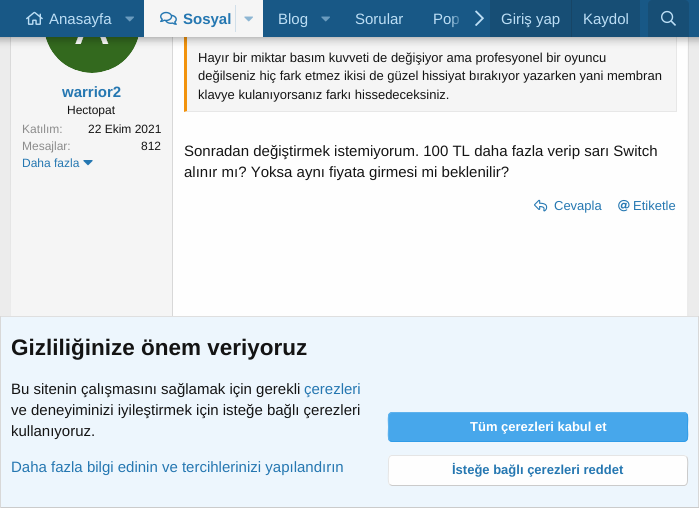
#include <cairo.h>
#include <math.h>
#include <stddef.h>


static void rgb(cairo_t *cr, int r, int g, int b)
{
	cairo_set_source_rgb(cr, r / 255.0, g / 255.0, b / 255.0);
}

static void face(cairo_t *cr, const char *family, double size, int italic, int bold)
{
	cairo_select_font_face(cr, family, italic ? CAIRO_FONT_SLANT_ITALIC : CAIRO_FONT_SLANT_NORMAL,
		bold ? CAIRO_FONT_WEIGHT_BOLD : CAIRO_FONT_WEIGHT_NORMAL);
	cairo_set_font_size(cr, size);
}

static void label(cairo_t *cr, double x, double y, const char *s)
{
	cairo_move_to(cr, x, y);
	cairo_show_text(cr, s);
}

static void rect(cairo_t *cr, double x, double y, double w, double h)
{
	cairo_rectangle(cr, x, y, w, h);
	cairo_fill(cr);
}

static void rrect(cairo_t *cr, double x, double y, double w, double h, double r)
{
	cairo_new_sub_path(cr);
	cairo_arc(cr, x + w - r, y + h - r, r, 0, M_PI / 2);
	cairo_arc(cr, x + r, y + h - r, r, M_PI / 2, M_PI);
	cairo_arc(cr, x + r, y + r, r, M_PI, 1.5 * M_PI);
	cairo_arc(cr, x + w - r, y + r, r, 1.5 * M_PI, 2 * M_PI);
	cairo_close_path(cr);
}

static void soft_shadow(cairo_t *cr, double x, double y, double w, double h, double r, double blur, double alpha)
{
	cairo_push_group_with_content(cr, CAIRO_CONTENT_ALPHA);
	cairo_set_operator(cr, CAIRO_OPERATOR_SOURCE);
	for (int i = 15; i >= -15 && fmin(w, h) + blur * i / 3 > 0; i -= 2) {
		double e = blur * i / 6;
		cairo_set_source_rgba(cr, 0, 0, 0, alpha * erfc((i - 1) / 8.5) / 2);
		rrect(cr, x - e, y - e, w + 2 * e, h + 2 * e, fmax(0, fmin(r + e + blur * .6, fmin(w, h) / 2 + e)));
		cairo_fill(cr);
	}
	cairo_pattern_t *soft = cairo_pop_group(cr);
	cairo_mask(cr, soft);
	cairo_pattern_destroy(soft);
}

static void image(cairo_t *cr, const char *path, double x, double y, double w, double h)
{
	cairo_surface_t *image = cairo_image_surface_create_from_png(path);
	cairo_save(cr);
	cairo_set_source_surface(cr, image, x, y);
	cairo_rectangle(cr, x, y, w, h);
	cairo_fill(cr);
	cairo_restore(cr);
	cairo_surface_destroy(image);
}

static void draw(cairo_t *cr) {
	cairo_pattern_t *gradient;
	rgb(cr, 236, 236, 236);
	cairo_paint(cr);
	rgb(cr, 254, 254, 254);
	rect(cr, 10, 37, 679, 279);
	cairo_new_path(cr);
	cairo_move_to(cr, 687.5, -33.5);
	cairo_line_to(cr, 688.5, -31);
	cairo_line_to(cr, 688, 318.5);
	cairo_line_to(cr, 687.5, 319.5);
	rgb(cr, 216, 216, 216);
	cairo_set_line_width(cr, 1);
	cairo_stroke(cr);
	cairo_new_path(cr);
	cairo_move_to(cr, 11.5, 319.5);
	cairo_line_to(cr, 11, 318.5);
	cairo_line_to(cr, 10.5, 27);
	cairo_line_to(cr, 10.5, -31);
	cairo_line_to(cr, 11.5, -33.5);
	cairo_stroke(cr);
	rgb(cr, 245, 245, 245);
	rect(cr, 11, 37, 161, 279);
	rgb(cr, 216, 216, 216);
	rect(cr, 172, 37, 1, 283);
	image(cr, "image6.png", 45, 37, 94, 36);
	rgb(cr, 245, 245, 245);
	rect(cr, 187, 42, 489, 69);
	rgb(cr, 231, 231, 231);
	rect(cr, 676, 37, 1, 75);
	cairo_new_path(cr);
	cairo_move_to(cr, 677, 112);
	cairo_line_to(cr, 184, 112);
	cairo_line_to(cr, 187, 111);
	cairo_line_to(cr, 676, 111);
	cairo_close_path(cr);
	cairo_fill(cr);
	rgb(cr, 242, 147, 13);
	cairo_new_path(cr);
	cairo_move_to(cr, 184, 112);
	cairo_line_to(cr, 184, 9);
	cairo_line_to(cr, 187, 10);
	cairo_line_to(cr, 187, 111);
	cairo_close_path(cr);
	cairo_fill(cr);
	rgb(cr, 250, 250, 250);
	rect(cr, 187, 37, 489, 5);
	rgb(cr, 0, 0, 0);
	soft_shadow(cr, -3, -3, 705, 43, 0, 4, 0.3);
	rgb(cr, 24, 88, 134);
	rect(cr, 0, 0, 699, 37);
	image(cr, "image0.png", 26, 11, 17, 14);
	face(cr, "Liberation Sans", 15, 0, 0);
	rgb(cr, 188, 222, 245);
	label(cr, 49, 24, "Anasayfa");
	image(cr, "image1.png", 125, 16, 9, 6);
	rgb(cr, 245, 245, 245);
	rect(cr, 144, 0, 119, 37);
	image(cr, "image2.png", 160, 11, 17, 14);
	face(cr, "Liberation Sans", 15, 0, 1);
	rgb(cr, 37, 119, 177);
	label(cr, 183, 24, "Sosyal");
	rgb(cr, 209, 223, 233);
	rect(cr, 235, 5, 1, 27);
	image(cr, "image3.png", 244, 16, 9, 6);
	face(cr, "Liberation Sans", 15, 0, 0);
	rgb(cr, 188, 222, 245);
	label(cr, 278, 24, "Blog");
	image(cr, "image1.png", 321, 16, 9, 6);
	label(cr, 355, 24, "Sorular");
	label(cr, 433, 24, "Pop");
	gradient = cairo_pattern_create_linear(450, 19, 490, 19);
	cairo_pattern_add_color_stop_rgba(gradient, 0, 0.094, 0.345, 0.525, 0);
	cairo_pattern_add_color_stop_rgba(gradient, 0.33, 0.094, 0.345, 0.525, 1);
	cairo_set_source(cr, gradient);
	cairo_pattern_destroy(gradient);
	rect(cr, 450, 16, 10, 12);
	image(cr, "image4.png", 475, 10, 9, 16);
	rgb(cr, 23, 78, 117);
	rect(cr, 490, 0, 150, 37);
	rgb(cr, 188, 222, 245);
	label(cr, 501, 24, "Giriş yap");
	rgb(cr, 23, 69, 102);
	rect(cr, 571, 0, 1, 37);
	rgb(cr, 188, 222, 245);
	label(cr, 583, 24, "Kaydol");
	rgb(cr, 23, 78, 117);
	cairo_new_path(cr);
	cairo_move_to(cr, 652, 0);
	cairo_line_to(cr, 685, 0);
	cairo_curve_to(cr, 687, 0, 689, 2, 689, 4);
	cairo_line_to(cr, 689, 37);
	cairo_line_to(cr, 648, 37);
	cairo_line_to(cr, 648, 4);
	cairo_curve_to(cr, 648, 2, 650, 0, 652, 0);
	cairo_close_path(cr);
	cairo_fill(cr);
	image(cr, "image5.png", 661, 10, 15, 16);
	face(cr, "Liberation Sans", 15, 0, 1);
	rgb(cr, 37, 119, 177);
	label(cr, 62, 97, "warrior2");
	face(cr, "Liberation Sans", 12, 0, 0);
	rgb(cr, 20, 20, 20);
	label(cr, 67, 114, "Hectopat");
	rgb(cr, 140, 140, 140);
	label(cr, 22, 133, "Katılım:");
	rgb(cr, 20, 20, 20);
	label(cr, 88, 133, "22 Ekim 2021");
	rgb(cr, 140, 140, 140);
	label(cr, 22, 150, "Mesajlar:");
	rgb(cr, 20, 20, 20);
	label(cr, 141, 150, "812");
	rgb(cr, 37, 119, 177);
	label(cr, 22, 167, "Daha fazla");
	image(cr, "image7.png", 83, 160, 10, 6);
	face(cr, "Liberation Sans", 13, 0, 0);
	rgb(cr, 20, 20, 20);
	label(cr, 198, 62, "Hayır bir miktar basım kuvveti de değişiyor ama profesyonel bir oyuncu");
	label(cr, 198, 80, "değilseniz hiç fark etmez ikisi de güzel hissiyat bırakıyor yazarken yani membran");
	label(cr, 198, 99, "klavye kulanıyorsanız farkı hissedeceksiniz.");
	face(cr, "Liberation Sans", 15, 0, 0);
	label(cr, 184, 156, "Sonradan değiştirmek istemiyorum. 100 TL daha fazla verip sarı Switch");
	label(cr, 184, 177, "alınır mı? Yoksa aynı fiyata girmesi mi beklenilir?");
	image(cr, "image8.png", 534, 199, 14, 13);
	face(cr, "Liberation Sans", 13, 0, 0);
	rgb(cr, 37, 119, 177);
	label(cr, 554, 210, "Cevapla");
	image(cr, "image9.png", 618, 199, 12, 13);
	label(cr, 633, 210, "Etiketle");
	rgb(cr, 237, 246, 253);
	rect(cr, 1, 317, 697, 190);
	rgb(cr, 223, 223, 223);
	rect(cr, 0, 316, 699, 1);
	rgb(cr, 216, 216, 216);
	rect(cr, 698, 316, 1, 192);
	rgb(cr, 203, 203, 203);
	rect(cr, 0, 507, 699, 1);
	rgb(cr, 216, 216, 216);
	rect(cr, 0, 316, 1, 192);
	face(cr, "Liberation Sans", 22.5, 0, 1);
	rgb(cr, 20, 20, 20);
	label(cr, 11, 355, "Gizliliğinize önem veriyoruz");
	face(cr, "Liberation Sans", 15, 0, 0);
	label(cr, 11, 394, "Bu sitenin çalışmasını sağlamak için gerekli");
	rgb(cr, 37, 119, 177);
	label(cr, 304, 394, "çerezleri");
	rgb(cr, 20, 20, 20);
	label(cr, 11, 415, "ve deneyiminizi iyileştirmek için isteğe bağlı çerezleri");
	label(cr, 11, 436, "kullanıyoruz.");
	rgb(cr, 37, 119, 177);
	label(cr, 11, 472, "Daha fazla bilgi edinin ve tercihlerinizi yapılandırın");
	rgb(cr, 71, 167, 235);
	rrect(cr, 388, 412, 300, 30, 4);
	cairo_fill(cr);
	cairo_new_path(cr);
	cairo_move_to(cr, 686.5, 413.5);
	cairo_curve_to(cr, 688.5, 415.5, 687.5, 424, 687.5, 427);
	cairo_curve_to(cr, 687.5, 430, 688.5, 438.5, 686.5, 440.5);
	cairo_line_to(cr, 684, 441.5);
	cairo_line_to(cr, 392, 441.5);
	cairo_line_to(cr, 389.5, 440.5);
	rgb(cr, 48, 156, 232);
	cairo_stroke(cr);
	cairo_new_path(cr);
	cairo_move_to(cr, 389.5, 440.5);
	cairo_curve_to(cr, 387.5, 438.5, 388.5, 430, 388.5, 427);
	cairo_curve_to(cr, 388.5, 424, 387.5, 415.5, 389.5, 413.5);
	cairo_line_to(cr, 392, 412.5);
	cairo_line_to(cr, 684, 412.5);
	cairo_line_to(cr, 686.5, 413.5);
	rgb(cr, 94, 178, 237);
	cairo_stroke(cr);
	face(cr, "Liberation Sans", 13, 0, 1);
	rgb(cr, 255, 255, 255);
	label(cr, 470, 431, "Tüm çerezleri kabul et");
	rgb(cr, 254, 254, 254);
	rrect(cr, 388, 455, 300, 31, 4);
	cairo_fill(cr);
	cairo_new_path(cr);
	cairo_move_to(cr, 686.5, 456.5);
	cairo_curve_to(cr, 688.5, 459, 687.5, 467.5, 687.5, 470.5);
	cairo_line_to(cr, 687.5, 478);
	cairo_curve_to(cr, 687.5, 480.5, 688, 484.5, 684.5, 485.5);
	cairo_line_to(cr, 392, 485.5);
	cairo_line_to(cr, 389.5, 484.5);
	rgb(cr, 203, 203, 203);
	cairo_stroke(cr);
	cairo_new_path(cr);
	cairo_move_to(cr, 389.5, 484.5);
	cairo_curve_to(cr, 387.5, 482, 388.5, 473.5, 388.5, 470.5);
	cairo_line_to(cr, 388.5, 463);
	cairo_curve_to(cr, 388.5, 460.5, 388, 456.5, 391.5, 455.5);
	cairo_line_to(cr, 684, 455.5);
	cairo_line_to(cr, 686.5, 456.5);
	rgb(cr, 229, 229, 229);
	cairo_stroke(cr);
	rgb(cr, 37, 119, 177);
	label(cr, 452, 474, "İsteğe bağlı çerezleri reddet");
}

int main(void) {
	cairo_surface_t *surface = cairo_image_surface_create(CAIRO_FORMAT_RGB24, 699, 508);
	cairo_t *cr = cairo_create(surface);
	cairo_font_options_t *options = cairo_font_options_create();
	cairo_font_options_set_hint_metrics(options, CAIRO_HINT_METRICS_OFF);
	cairo_font_options_set_hint_style(options, CAIRO_HINT_STYLE_NONE);
	cairo_set_font_options(cr, options);
	cairo_set_miter_limit(cr, 4);
	draw(cr);
	cairo_surface_write_to_png(surface, "render.png");
	cairo_font_options_destroy(options);
	cairo_destroy(cr);
	cairo_surface_destroy(surface);
	return 0;
}
